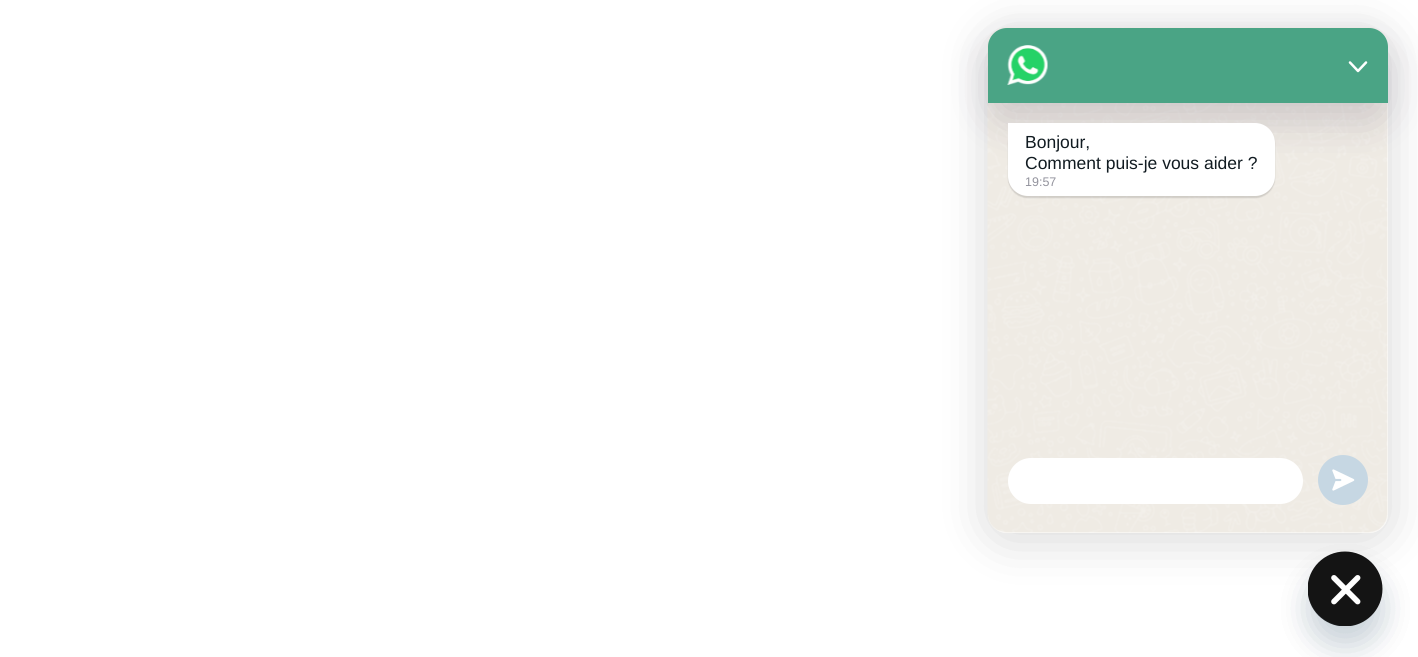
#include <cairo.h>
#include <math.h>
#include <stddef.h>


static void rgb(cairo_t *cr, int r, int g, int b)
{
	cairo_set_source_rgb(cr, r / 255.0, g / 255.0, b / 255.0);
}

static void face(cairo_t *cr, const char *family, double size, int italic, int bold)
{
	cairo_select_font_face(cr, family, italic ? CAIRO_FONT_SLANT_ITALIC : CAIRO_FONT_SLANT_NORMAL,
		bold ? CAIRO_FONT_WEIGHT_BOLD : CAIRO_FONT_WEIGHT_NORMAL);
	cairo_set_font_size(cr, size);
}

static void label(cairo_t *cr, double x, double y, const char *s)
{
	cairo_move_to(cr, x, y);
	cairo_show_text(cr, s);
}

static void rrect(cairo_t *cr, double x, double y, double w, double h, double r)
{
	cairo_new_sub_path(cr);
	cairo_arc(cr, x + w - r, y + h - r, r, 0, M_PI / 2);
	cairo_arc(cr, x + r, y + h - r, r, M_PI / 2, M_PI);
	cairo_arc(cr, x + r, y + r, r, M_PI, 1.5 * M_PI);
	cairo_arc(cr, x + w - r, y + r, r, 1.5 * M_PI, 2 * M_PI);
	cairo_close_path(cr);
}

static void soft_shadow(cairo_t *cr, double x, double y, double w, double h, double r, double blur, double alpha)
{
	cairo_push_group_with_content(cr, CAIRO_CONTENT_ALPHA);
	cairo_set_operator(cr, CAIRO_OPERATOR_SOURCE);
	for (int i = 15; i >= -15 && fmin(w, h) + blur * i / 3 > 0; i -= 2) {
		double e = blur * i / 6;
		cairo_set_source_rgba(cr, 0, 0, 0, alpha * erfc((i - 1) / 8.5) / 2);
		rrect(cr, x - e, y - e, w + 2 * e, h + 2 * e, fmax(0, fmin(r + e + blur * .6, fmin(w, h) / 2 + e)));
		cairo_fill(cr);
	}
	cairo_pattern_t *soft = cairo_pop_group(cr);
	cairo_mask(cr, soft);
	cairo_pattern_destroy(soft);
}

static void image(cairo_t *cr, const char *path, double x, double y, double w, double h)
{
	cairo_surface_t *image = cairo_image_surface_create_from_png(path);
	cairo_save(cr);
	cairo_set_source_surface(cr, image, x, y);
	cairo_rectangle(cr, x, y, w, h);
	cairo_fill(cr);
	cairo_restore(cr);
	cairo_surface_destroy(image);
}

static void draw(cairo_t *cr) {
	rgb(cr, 255, 255, 255);
	cairo_paint(cr);
	rgb(cr, 73, 104, 126);
	soft_shadow(cr, 1308, 571, 75, 75, 37.5, 15, 0.16);
	image(cr, "image3.png", 1308, 551, 75, 75);
	rgb(cr, 0, 0, 0);
	soft_shadow(cr, 988, 34, 400, 505, 19, 25, 0.16);
	cairo_save(cr);
	cairo_set_fill_rule(cr, CAIRO_FILL_RULE_EVEN_ODD);
	cairo_new_path(cr);
	cairo_move_to(cr, 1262, 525);
	cairo_line_to(cr, 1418, 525);
	cairo_line_to(cr, 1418, 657);
	cairo_line_to(cr, 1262, 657);
	cairo_close_path(cr);
	cairo_move_to(cr, 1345.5, 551);
	cairo_curve_to(cr, 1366, 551, 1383, 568, 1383, 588.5);
	cairo_curve_to(cr, 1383, 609, 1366, 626, 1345.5, 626);
	cairo_curve_to(cr, 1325, 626, 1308, 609, 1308, 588.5);
	cairo_curve_to(cr, 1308, 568, 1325, 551, 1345.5, 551);
	cairo_close_path(cr);
	cairo_clip(cr);
	rgb(cr, 73, 104, 126);
	soft_shadow(cr, 1308, 571, 75, 75, 37.5, 15, 0.16);
	cairo_restore(cr);
	rgb(cr, 255, 255, 255);
	rrect(cr, 988, 28, 400, 505, 19);
	cairo_fill(cr);
	image(cr, "image1.png", 987, 27, 401, 506);
	rgb(cr, 26, 14, 53);
	soft_shadow(cr, 988, 48, 400, 75, 19, 20, 0.16);
	rgb(cr, 74, 164, 133);
	cairo_new_path(cr);
	cairo_move_to(cr, 1007, 28);
	cairo_line_to(cr, 1369, 28);
	cairo_curve_to(cr, 1379.5, 28, 1388, 36.5, 1388, 47);
	cairo_line_to(cr, 1388, 103);
	cairo_line_to(cr, 988, 103);
	cairo_line_to(cr, 988, 47);
	cairo_curve_to(cr, 988, 36.5, 996.5, 28, 1007, 28);
	cairo_close_path(cr);
	cairo_fill(cr);
	image(cr, "image0.png", 1007, 45, 41, 40);
	cairo_new_path(cr);
	cairo_move_to(cr, 1350, 62.5);
	cairo_line_to(cr, 1358, 71);
	cairo_line_to(cr, 1366, 62.5);
	rgb(cr, 255, 255, 255);
	cairo_set_line_width(cr, 2.5);
	cairo_set_line_cap(cr, CAIRO_LINE_CAP_ROUND);
	cairo_set_line_join(cr, CAIRO_LINE_JOIN_ROUND);
	cairo_stroke(cr);
	rgb(cr, 0, 0, 0);
	soft_shadow(cr, 1008, 124, 267, 74, 20, 0.5, 0.13);
	rgb(cr, 255, 255, 255);
	cairo_new_path(cr);
	cairo_move_to(cr, 1008, 123);
	cairo_line_to(cr, 1255, 123);
	cairo_curve_to(cr, 1266, 123, 1275, 132, 1275, 143);
	cairo_line_to(cr, 1275, 176);
	cairo_curve_to(cr, 1275, 187, 1266, 196, 1255, 196);
	cairo_line_to(cr, 1028, 196);
	cairo_curve_to(cr, 1017, 196, 1008, 187, 1008, 176);
	cairo_close_path(cr);
	cairo_fill(cr);
	face(cr, "Liberation Sans", 17.5, 0, 0);
	rgb(cr, 17, 27, 33);
	label(cr, 1025, 148, "Bonjour,");
	label(cr, 1025, 169, "Comment puis-je vous aider ?");
	face(cr, "Liberation Sans", 12.5, 0, 0);
	rgb(cr, 147, 147, 157);
	label(cr, 1025, 186, "19:57");
	rgb(cr, 255, 255, 255);
	rrect(cr, 1008, 458, 295, 46, 23);
	cairo_fill(cr);
	rgb(cr, 198, 215, 227);
	cairo_arc(cr, 1343, 480, 25, 0, 2 * M_PI);
	cairo_fill(cr);
	image(cr, "image2.png", 1332, 469, 23, 22);
}

int main(void) {
	cairo_surface_t *surface = cairo_image_surface_create(CAIRO_FORMAT_RGB24, 1418, 657);
	cairo_t *cr = cairo_create(surface);
	cairo_font_options_t *options = cairo_font_options_create();
	cairo_font_options_set_hint_metrics(options, CAIRO_HINT_METRICS_OFF);
	cairo_font_options_set_hint_style(options, CAIRO_HINT_STYLE_NONE);
	cairo_set_font_options(cr, options);
	cairo_set_miter_limit(cr, 4);
	draw(cr);
	cairo_surface_write_to_png(surface, "render.png");
	cairo_font_options_destroy(options);
	cairo_destroy(cr);
	cairo_surface_destroy(surface);
	return 0;
}
